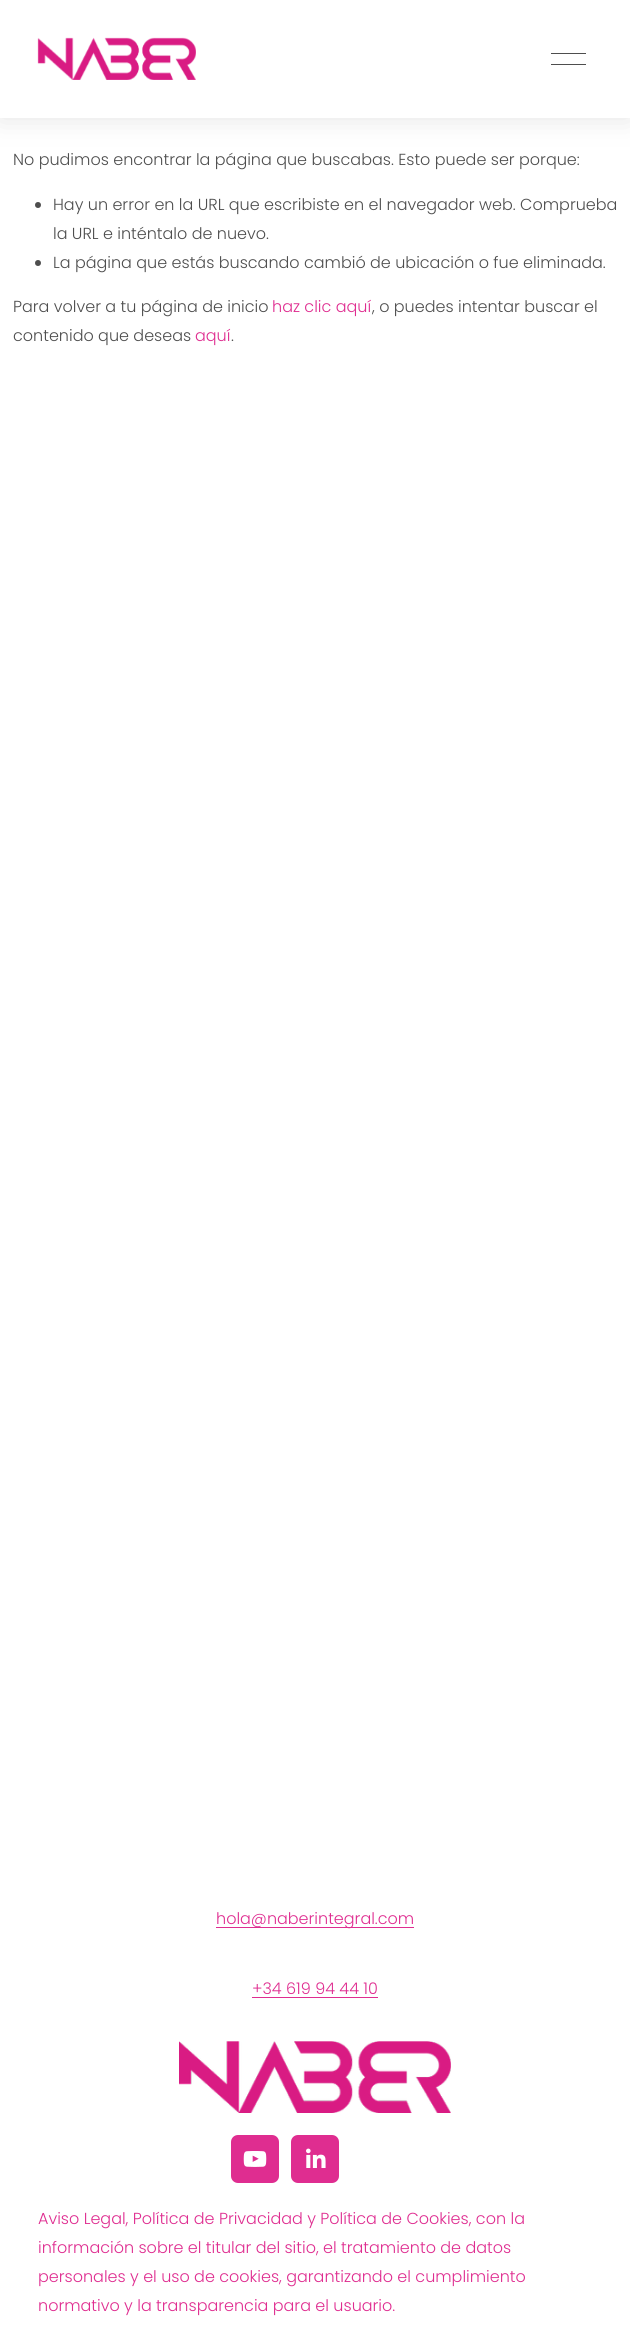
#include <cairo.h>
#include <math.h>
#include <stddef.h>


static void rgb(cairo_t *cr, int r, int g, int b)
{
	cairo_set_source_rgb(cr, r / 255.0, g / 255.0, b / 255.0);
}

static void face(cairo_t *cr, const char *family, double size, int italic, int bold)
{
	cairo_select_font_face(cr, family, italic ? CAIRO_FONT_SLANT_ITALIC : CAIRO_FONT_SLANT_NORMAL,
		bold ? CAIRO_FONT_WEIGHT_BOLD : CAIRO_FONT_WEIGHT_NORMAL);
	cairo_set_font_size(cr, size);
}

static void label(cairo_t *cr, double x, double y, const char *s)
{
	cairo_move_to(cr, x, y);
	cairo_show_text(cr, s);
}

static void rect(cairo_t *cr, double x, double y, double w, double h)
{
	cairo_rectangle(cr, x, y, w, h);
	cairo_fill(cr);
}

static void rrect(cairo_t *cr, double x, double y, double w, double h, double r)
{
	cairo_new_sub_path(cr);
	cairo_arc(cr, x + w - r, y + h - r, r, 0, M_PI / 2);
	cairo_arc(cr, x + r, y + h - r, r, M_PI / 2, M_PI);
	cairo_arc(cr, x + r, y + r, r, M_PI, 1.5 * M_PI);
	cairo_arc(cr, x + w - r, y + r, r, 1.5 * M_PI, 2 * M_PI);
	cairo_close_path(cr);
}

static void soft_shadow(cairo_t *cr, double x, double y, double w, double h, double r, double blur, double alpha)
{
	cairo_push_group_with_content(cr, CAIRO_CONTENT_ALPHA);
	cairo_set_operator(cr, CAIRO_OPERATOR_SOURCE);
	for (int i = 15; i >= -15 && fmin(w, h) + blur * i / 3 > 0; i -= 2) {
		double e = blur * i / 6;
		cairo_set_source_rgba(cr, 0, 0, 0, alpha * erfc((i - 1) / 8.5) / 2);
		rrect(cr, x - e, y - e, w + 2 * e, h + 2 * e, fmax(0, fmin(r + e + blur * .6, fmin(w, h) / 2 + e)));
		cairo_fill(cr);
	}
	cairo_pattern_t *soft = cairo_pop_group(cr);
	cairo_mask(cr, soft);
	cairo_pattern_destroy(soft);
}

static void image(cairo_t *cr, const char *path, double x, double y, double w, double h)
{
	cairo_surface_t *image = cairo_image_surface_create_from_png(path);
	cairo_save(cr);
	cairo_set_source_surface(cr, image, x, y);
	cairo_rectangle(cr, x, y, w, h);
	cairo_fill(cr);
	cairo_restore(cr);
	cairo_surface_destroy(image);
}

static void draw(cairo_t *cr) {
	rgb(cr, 255, 255, 255);
	cairo_paint(cr);
	cairo_save(cr);
	cairo_rectangle(cr, 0, 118, 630, 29);
	cairo_clip(cr);
	rgb(cr, 228, 228, 228);
	soft_shadow(cr, 0, 0, 630, 118, 0, 14, 1);
	cairo_restore(cr);
	image(cr, "image0.png", 37, 37, 159, 43);
	rgb(cr, 78, 78, 78);
	rect(cr, 551, 53, 35, 1);
	rect(cr, 551, 64, 35, 1);
	face(cr, "Poppins Light", 16, 0, 0);
	label(cr, 13, 165, "No pudimos encontrar la página que buscabas. Esto puede ser porque:");
	cairo_new_path(cr);
	cairo_arc(cr, 38, 205, 3, 0, 2 * M_PI);
	cairo_fill(cr);
	label(cr, 53, 210, "Hay un error en la URL que escribiste en el navegador web. Comprueba");
	label(cr, 53, 239, "la URL e inténtalo de nuevo.");
	cairo_new_path(cr);
	cairo_arc(cr, 38, 263, 3, 0, 2 * M_PI);
	cairo_fill(cr);
	label(cr, 53, 268, "La página que estás buscando cambió de ubicación o fue eliminada.");
	label(cr, 13, 312, "Para volver a tu página de inicio");
	rgb(cr, 223, 45, 144);
	label(cr, 272, 312, "haz clic aquí");
	rgb(cr, 78, 78, 78);
	label(cr, 372, 312, ", o puedes intentar buscar el");
	label(cr, 13, 341, "contenido que deseas");
	rgb(cr, 223, 45, 144);
	label(cr, 195, 341, "aquí");
	rgb(cr, 78, 78, 78);
	label(cr, 231, 341, ".");
	rgb(cr, 223, 45, 144);
	rect(cr, 216, 1927, 198, 1);
	label(cr, 216, 1924, "hola@naberintegral.com");
	label(cr, 252, 1994, "+34 619 94 44 10");
	rect(cr, 252, 1997, 126, 1);
	image(cr, "image1.png", 179, 2041, 272, 72);
	image(cr, "image2.png", 231, 2135, 48, 48);
	image(cr, "image3.png", 291, 2135, 48, 48);
	label(cr, 38, 2224, "Aviso Legal, Política de Privacidad y Política de Cookies, con la");
	label(cr, 38, 2253, "información sobre el titular del sitio, el tratamiento de datos");
	label(cr, 38, 2282, "personales y el uso de cookies, garantizando el cumplimiento");
	label(cr, 38, 2311, "normativo y la transparencia para el usuario.");
}

int main(void) {
	cairo_surface_t *surface = cairo_image_surface_create(CAIRO_FORMAT_RGB24, 630, 2325);
	cairo_t *cr = cairo_create(surface);
	cairo_font_options_t *options = cairo_font_options_create();
	cairo_font_options_set_hint_metrics(options, CAIRO_HINT_METRICS_OFF);
	cairo_font_options_set_hint_style(options, CAIRO_HINT_STYLE_NONE);
	cairo_set_font_options(cr, options);
	cairo_set_miter_limit(cr, 4);
	draw(cr);
	cairo_surface_write_to_png(surface, "render.png");
	cairo_font_options_destroy(options);
	cairo_destroy(cr);
	cairo_surface_destroy(surface);
	return 0;
}
